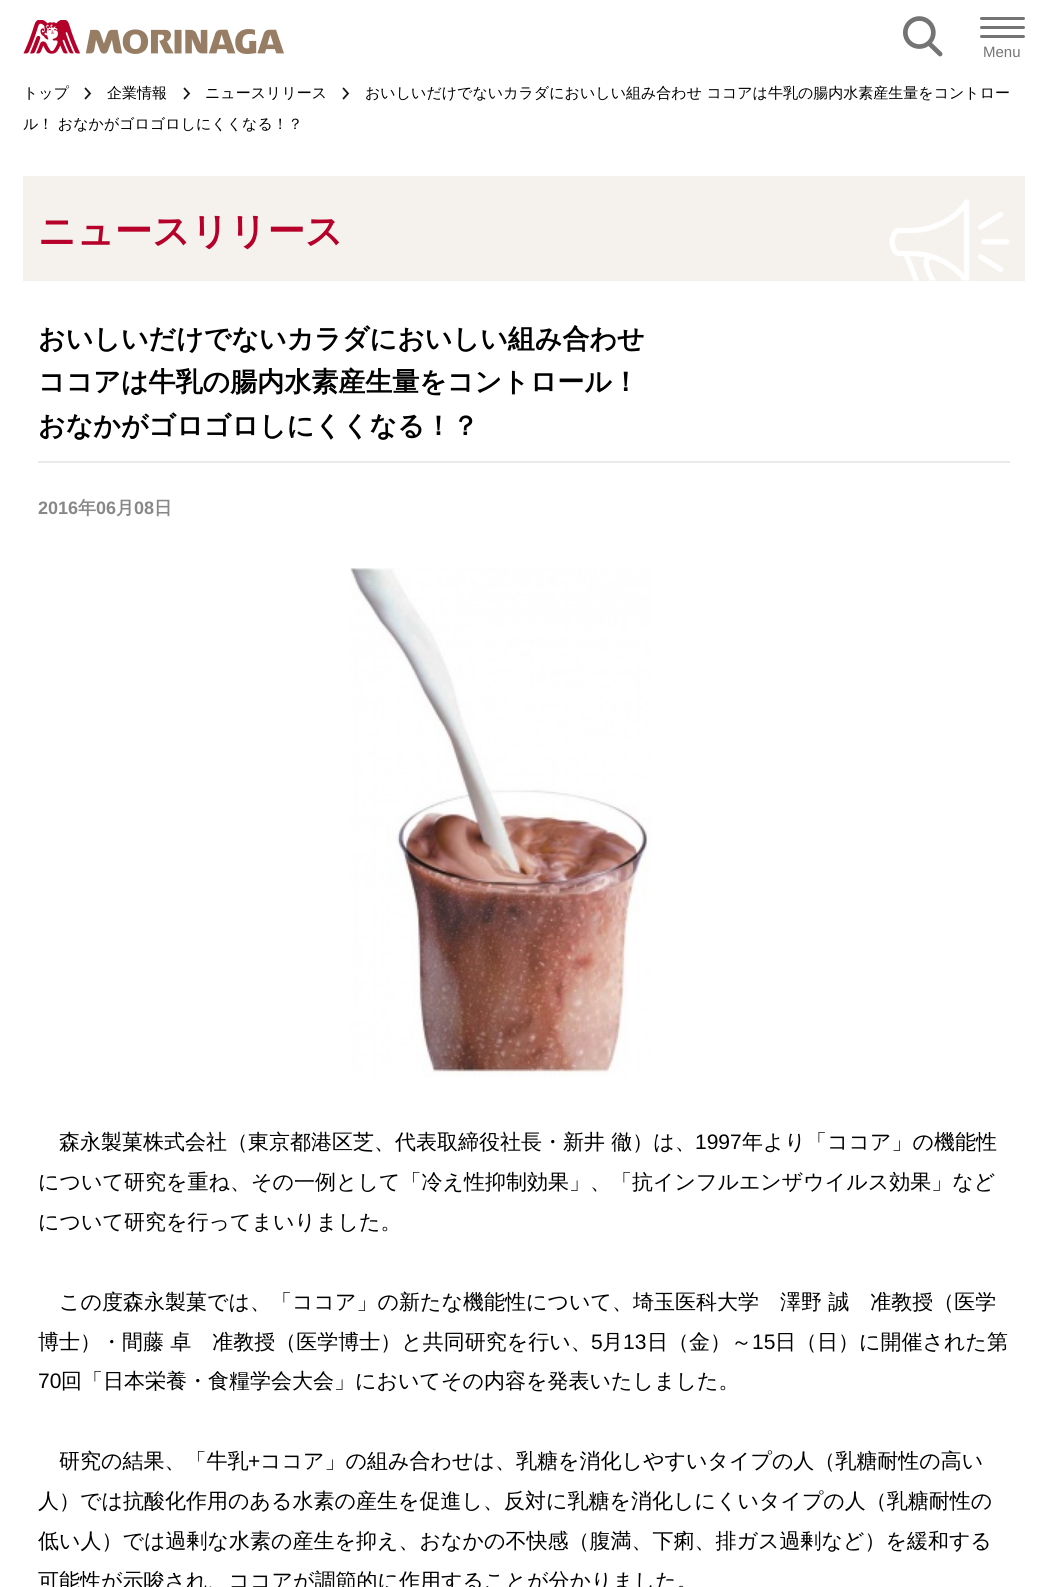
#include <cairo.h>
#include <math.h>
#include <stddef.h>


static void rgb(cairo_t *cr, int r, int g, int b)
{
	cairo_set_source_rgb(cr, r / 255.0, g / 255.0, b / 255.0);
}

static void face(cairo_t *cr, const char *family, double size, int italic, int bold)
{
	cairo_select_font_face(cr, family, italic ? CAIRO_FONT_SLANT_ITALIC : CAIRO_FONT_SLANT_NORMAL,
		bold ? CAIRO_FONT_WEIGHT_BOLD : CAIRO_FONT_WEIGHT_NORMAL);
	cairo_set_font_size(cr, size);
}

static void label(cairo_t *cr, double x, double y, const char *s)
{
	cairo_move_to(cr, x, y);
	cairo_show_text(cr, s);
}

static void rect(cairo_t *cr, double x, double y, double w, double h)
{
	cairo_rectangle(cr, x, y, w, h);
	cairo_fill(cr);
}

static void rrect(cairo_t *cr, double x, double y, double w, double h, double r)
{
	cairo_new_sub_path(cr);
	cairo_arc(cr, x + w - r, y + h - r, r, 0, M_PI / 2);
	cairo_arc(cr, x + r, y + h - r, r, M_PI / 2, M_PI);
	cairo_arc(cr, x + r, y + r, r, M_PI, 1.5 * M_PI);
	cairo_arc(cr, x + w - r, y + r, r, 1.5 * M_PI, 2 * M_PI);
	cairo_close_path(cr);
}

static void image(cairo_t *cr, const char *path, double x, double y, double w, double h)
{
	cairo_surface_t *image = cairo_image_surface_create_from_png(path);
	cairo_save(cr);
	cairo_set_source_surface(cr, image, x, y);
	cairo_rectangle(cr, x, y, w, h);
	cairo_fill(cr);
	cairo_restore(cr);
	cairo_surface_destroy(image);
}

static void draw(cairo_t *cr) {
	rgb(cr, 255, 255, 255);
	cairo_paint(cr);
	image(cr, "image0.png", 23, 20, 261, 34);
	image(cr, "image1.png", 903, 16, 40, 41);
	rgb(cr, 116, 116, 116);
	rrect(cr, 980, 17, 45, 3, 1.5);
	cairo_fill(cr);
	rrect(cr, 980, 35, 45, 3, 1.5);
	cairo_fill(cr);
	rrect(cr, 980, 26, 45, 3, 1.5);
	cairo_fill(cr);
	face(cr, "Liberation Sans", 15, 0, 0);
	label(cr, 983, 57, "Menu");
	face(cr, "WenQuanYi Zen Hei Medium", 15, 0, 0);
	rgb(cr, 0, 0, 0);
	label(cr, 23, 98, "トップ");
	cairo_new_path(cr);
	cairo_move_to(cr, 85.5, 88.5);
	cairo_line_to(cr, 90, 93.5);
	cairo_line_to(cr, 85.5, 98.5);
	rgb(cr, 21, 21, 21);
	cairo_set_line_width(cr, 1.8);
	cairo_set_line_cap(cr, CAIRO_LINE_CAP_ROUND);
	cairo_stroke(cr);
	rgb(cr, 0, 0, 0);
	label(cr, 107, 98, "企業情報");
	cairo_new_path(cr);
	cairo_move_to(cr, 184.5, 88.5);
	cairo_line_to(cr, 189, 93.5);
	cairo_line_to(cr, 184.5, 98.5);
	rgb(cr, 21, 21, 21);
	cairo_stroke(cr);
	rgb(cr, 0, 0, 0);
	label(cr, 205, 98, "ニュースリリース");
	cairo_new_path(cr);
	cairo_move_to(cr, 343.5, 88.5);
	cairo_line_to(cr, 348, 93.5);
	cairo_line_to(cr, 343.5, 98.5);
	rgb(cr, 21, 21, 21);
	cairo_stroke(cr);
	rgb(cr, 0, 0, 0);
	label(cr, 365, 98, "おいしいだけでないカラダにおいしい組み合わせ ココアは牛乳の腸内水素産生量をコントロー");
	label(cr, 23, 129, "ル！ おなかがゴロゴロしにくくなる！？");
	rgb(cr, 245, 242, 237);
	rect(cr, 23, 176, 1002, 105);
	face(cr, "WenQuanYi Zen Hei", 37.5, 0, 1);
	rgb(cr, 182, 0, 42);
	label(cr, 38, 244, "ニュースリリース");
	image(cr, "image2.png", 889, 199, 121, 82);
	rgb(cr, 234, 234, 234);
	rect(cr, 38, 461, 972, 2);
	face(cr, "WenQuanYi Zen Hei", 27, 0, 1);
	rgb(cr, 0, 0, 0);
	label(cr, 38, 348, "おいしいだけでないカラダにおいしい組み合わせ");
	label(cr, 38, 391, "ココアは牛乳の腸内水素産生量をコントロール！");
	label(cr, 38, 435, "おなかがゴロゴロしにくくなる！？");
	face(cr, "Liberation Sans", 18, 0, 1);
	rgb(cr, 136, 136, 136);
	label(cr, 38, 514, "2016");
	face(cr, "WenQuanYi Zen Hei", 18, 0, 1);
	label(cr, 78, 514, "年");
	face(cr, "Liberation Sans", 18, 0, 1);
	label(cr, 96, 514, "06");
	face(cr, "WenQuanYi Zen Hei", 18, 0, 1);
	label(cr, 116, 514, "月");
	face(cr, "Liberation Sans", 18, 0, 1);
	label(cr, 134, 514, "08");
	face(cr, "WenQuanYi Zen Hei", 18, 0, 1);
	label(cr, 154, 514, "日");
	image(cr, "image3.png", 350, 568, 302, 509);
	face(cr, "WenQuanYi Zen Hei Medium", 21, 0, 0);
	rgb(cr, 0, 0, 0);
	label(cr, 59, 1149, "森永製菓株式会社（東京都港区芝、代表取締役社長・新井 徹）は、");
	face(cr, "Liberation Sans", 21, 0, 0);
	label(cr, 695, 1149, "1997");
	face(cr, "WenQuanYi Zen Hei Medium", 21, 0, 0);
	label(cr, 742, 1149, "年より「ココア」の機能性");
	label(cr, 38, 1189, "について研究を重ね、その一例として「冷え性抑制効果」、「抗インフルエンザウイルス効果」など");
	label(cr, 38, 1229, "について研究を行ってまいりました。");
	label(cr, 59, 1309, "この度森永製菓では、「ココア」の新たな機能性について、埼玉医科大学　澤野 誠　准教授（医学");
	label(cr, 38, 1349, "博士）・間藤 卓　准教授（医学博士）と共同研究を行い、");
	face(cr, "Liberation Sans", 21, 0, 0);
	label(cr, 591, 1349, "5");
	face(cr, "WenQuanYi Zen Hei Medium", 21, 0, 0);
	label(cr, 602, 1349, "月");
	face(cr, "Liberation Sans", 21, 0, 0);
	label(cr, 623, 1349, "13");
	face(cr, "WenQuanYi Zen Hei Medium", 21, 0, 0);
	label(cr, 647, 1349, "日（金）～");
	face(cr, "Liberation Sans", 21, 0, 0);
	label(cr, 752, 1349, "15");
	face(cr, "WenQuanYi Zen Hei Medium", 21, 0, 0);
	label(cr, 775, 1349, "日（日）に開催された第");
	face(cr, "Liberation Sans", 21, 0, 0);
	label(cr, 38, 1388, "70");
	face(cr, "WenQuanYi Zen Hei Medium", 21, 0, 0);
	label(cr, 61, 1388, "回「日本栄養・食糧学会大会」においてその内容を発表いたしました。");
	label(cr, 59, 1468, "研究の結果、「牛乳");
	face(cr, "Liberation Sans", 21, 0, 0);
	label(cr, 248, 1468, "+");
	face(cr, "WenQuanYi Zen Hei Medium", 21, 0, 0);
	label(cr, 260, 1468, "ココア」の組み合わせは、乳糖を消化しやすいタイプの人（乳糖耐性の高い");
	label(cr, 38, 1508, "人）では抗酸化作用のある水素の産生を促進し、反対に乳糖を消化しにくいタイプの人（乳糖耐性の");
	label(cr, 38, 1548, "低い人）では過剰な水素の産生を抑え、おなかの不快感（腹満、下痢、排ガス過剰など）を緩和する");
	label(cr, 38, 1588, "可能性が示唆され、ココアが調節的に作用することが分かりました。");
}

int main(void) {
	cairo_surface_t *surface = cairo_image_surface_create(CAIRO_FORMAT_RGB24, 1047, 1587);
	cairo_t *cr = cairo_create(surface);
	cairo_font_options_t *options = cairo_font_options_create();
	cairo_font_options_set_hint_metrics(options, CAIRO_HINT_METRICS_OFF);
	cairo_font_options_set_hint_style(options, CAIRO_HINT_STYLE_NONE);
	cairo_set_font_options(cr, options);
	cairo_set_miter_limit(cr, 4);
	draw(cr);
	cairo_surface_write_to_png(surface, "render.png");
	cairo_font_options_destroy(options);
	cairo_destroy(cr);
	cairo_surface_destroy(surface);
	return 0;
}
